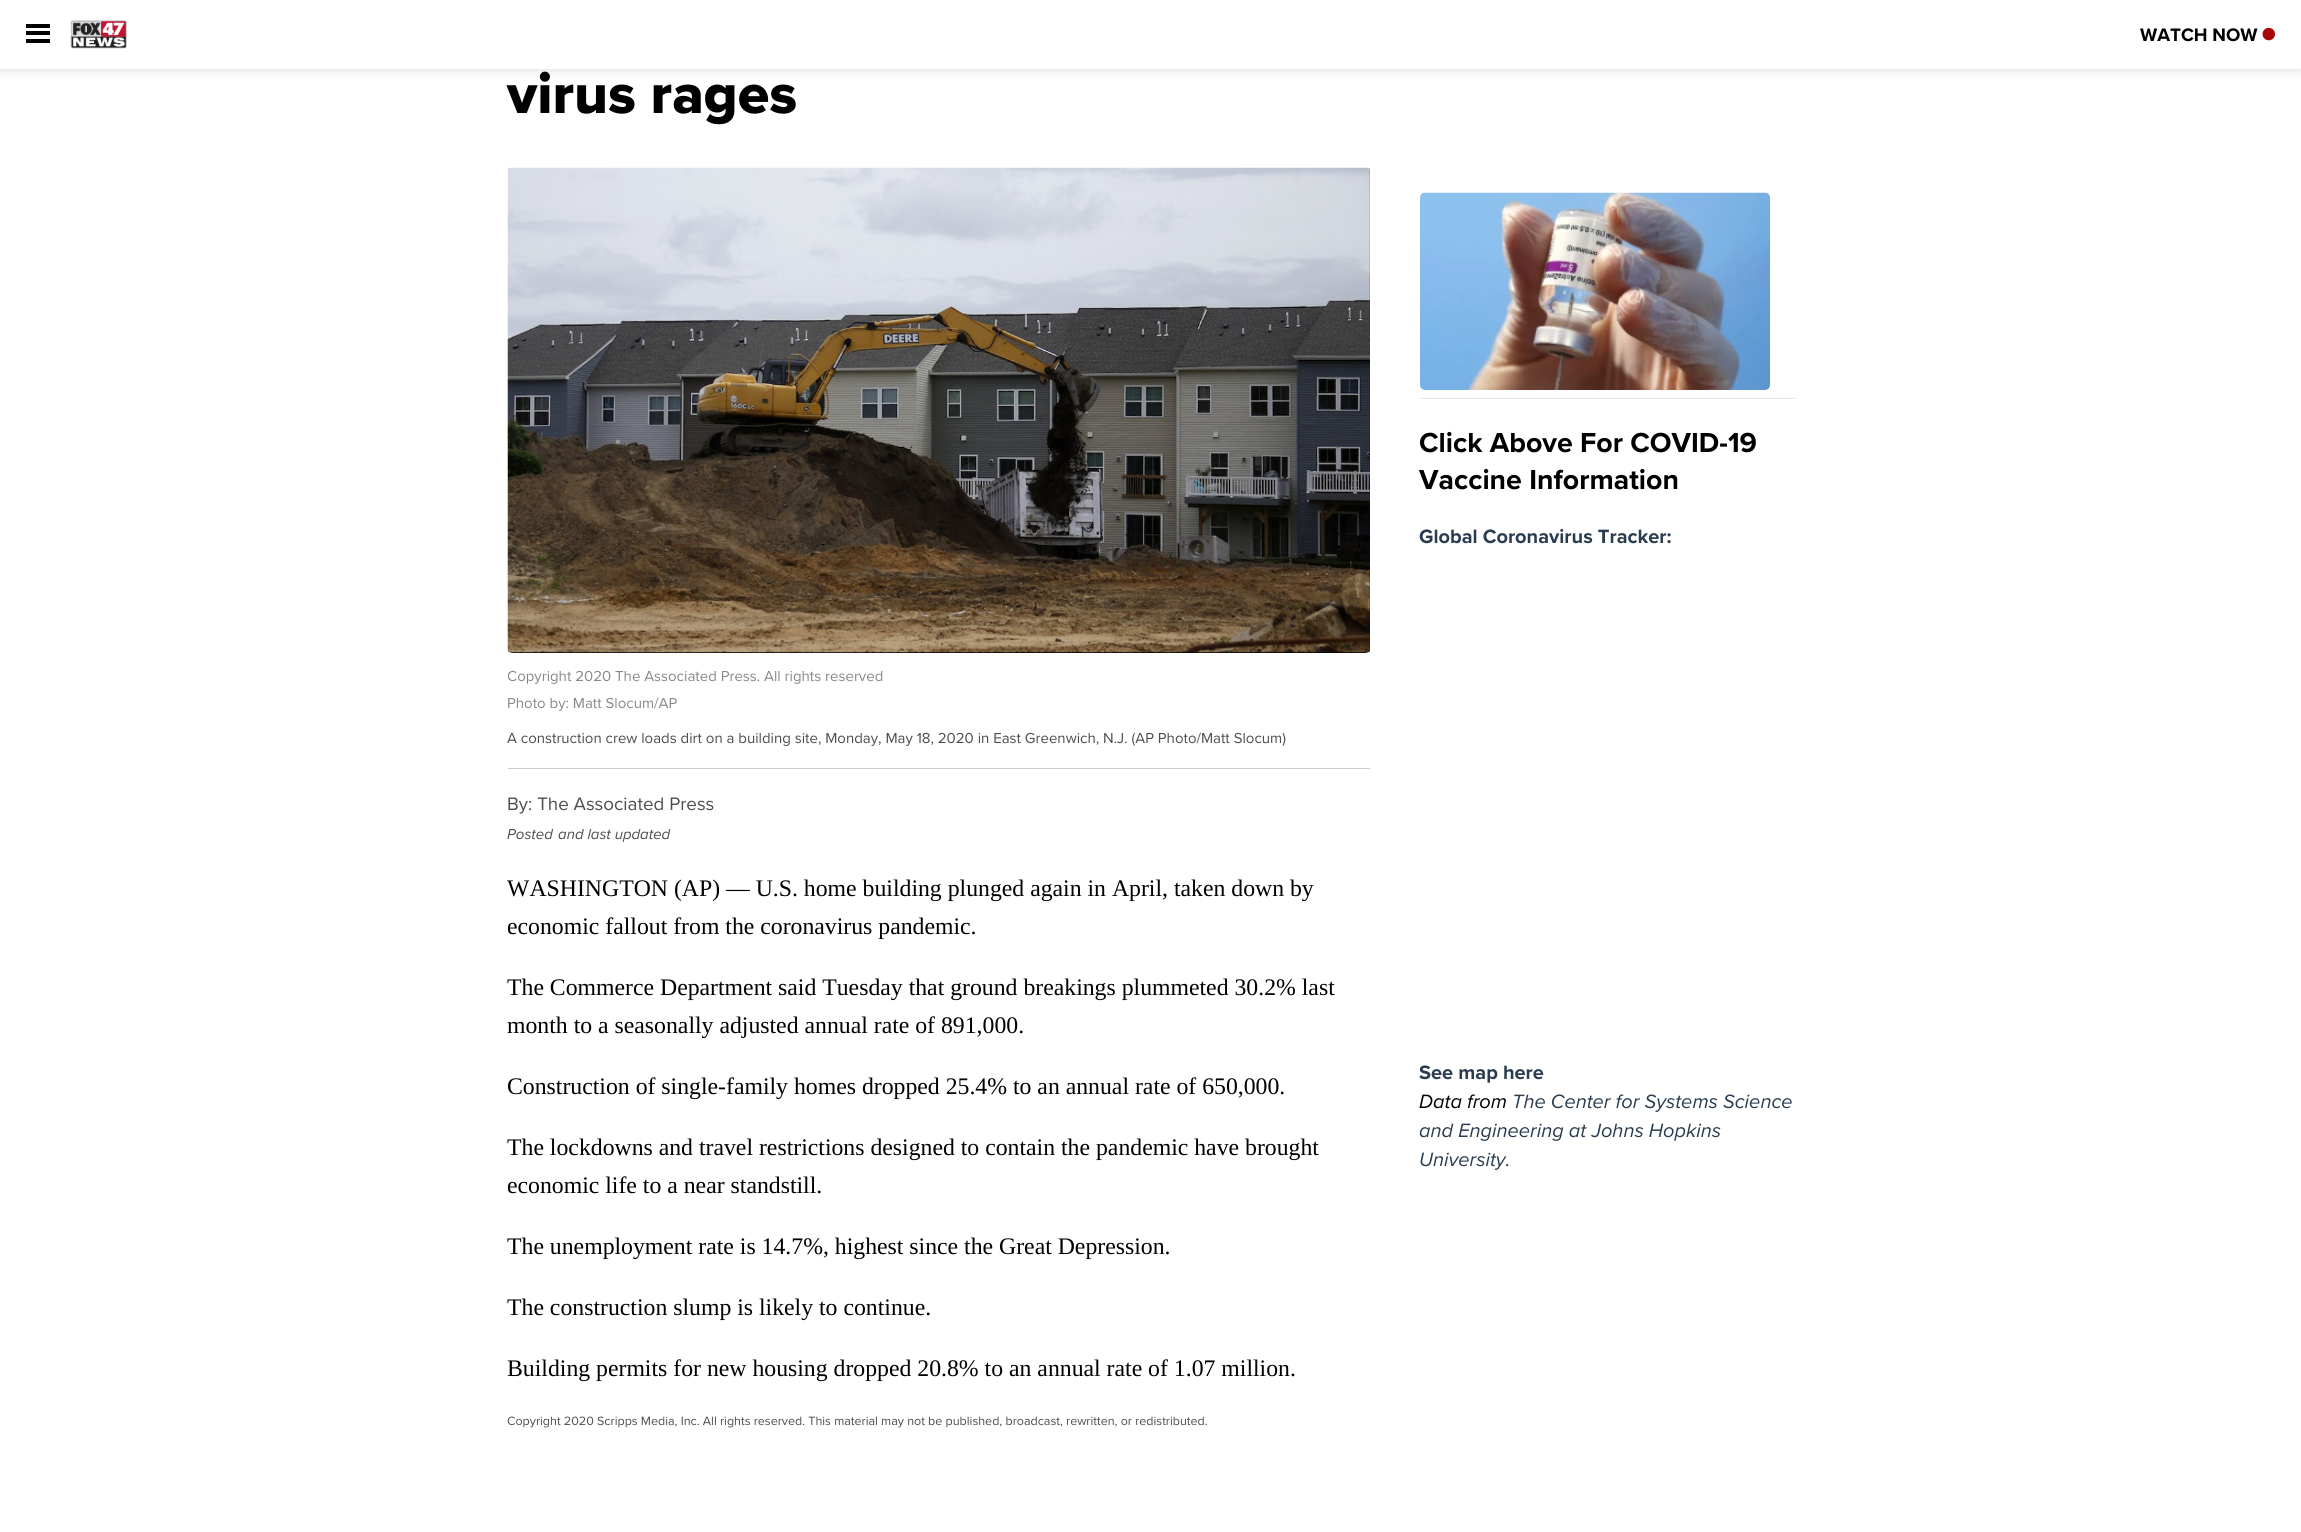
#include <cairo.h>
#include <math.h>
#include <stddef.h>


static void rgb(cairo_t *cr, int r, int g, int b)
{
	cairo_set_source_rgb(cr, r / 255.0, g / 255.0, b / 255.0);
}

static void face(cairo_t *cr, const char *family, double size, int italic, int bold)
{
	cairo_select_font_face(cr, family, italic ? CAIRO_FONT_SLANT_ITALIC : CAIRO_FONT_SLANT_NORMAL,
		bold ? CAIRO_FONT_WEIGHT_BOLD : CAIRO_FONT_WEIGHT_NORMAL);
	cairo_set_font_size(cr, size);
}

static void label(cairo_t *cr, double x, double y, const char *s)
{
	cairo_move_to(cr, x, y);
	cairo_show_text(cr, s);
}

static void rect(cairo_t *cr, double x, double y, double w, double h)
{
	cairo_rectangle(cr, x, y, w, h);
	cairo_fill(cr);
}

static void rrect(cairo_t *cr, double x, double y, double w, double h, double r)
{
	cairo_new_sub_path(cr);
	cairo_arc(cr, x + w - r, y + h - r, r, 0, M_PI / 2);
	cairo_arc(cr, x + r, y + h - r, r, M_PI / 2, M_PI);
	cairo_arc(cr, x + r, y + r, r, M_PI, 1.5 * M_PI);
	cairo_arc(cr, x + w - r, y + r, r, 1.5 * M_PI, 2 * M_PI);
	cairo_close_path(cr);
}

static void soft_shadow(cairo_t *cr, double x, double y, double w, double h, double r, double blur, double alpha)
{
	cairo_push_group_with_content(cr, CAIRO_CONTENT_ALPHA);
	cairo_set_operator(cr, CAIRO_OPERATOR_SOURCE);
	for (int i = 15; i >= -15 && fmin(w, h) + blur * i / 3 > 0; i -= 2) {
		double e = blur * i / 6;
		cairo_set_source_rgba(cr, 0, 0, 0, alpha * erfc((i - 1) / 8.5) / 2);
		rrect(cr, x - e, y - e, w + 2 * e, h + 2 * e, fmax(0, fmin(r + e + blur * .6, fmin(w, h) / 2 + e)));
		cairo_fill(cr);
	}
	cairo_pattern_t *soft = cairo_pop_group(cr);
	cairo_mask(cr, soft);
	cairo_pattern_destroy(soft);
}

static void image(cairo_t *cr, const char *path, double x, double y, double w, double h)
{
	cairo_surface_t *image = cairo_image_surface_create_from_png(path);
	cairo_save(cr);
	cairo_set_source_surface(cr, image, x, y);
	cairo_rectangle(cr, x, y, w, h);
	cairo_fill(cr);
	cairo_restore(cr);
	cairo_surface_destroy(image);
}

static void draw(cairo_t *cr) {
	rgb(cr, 255, 255, 255);
	cairo_paint(cr);
	cairo_save(cr);
	cairo_set_fill_rule(cr, CAIRO_FILL_RULE_EVEN_ODD);
	cairo_new_path(cr);
	cairo_move_to(cr, 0, 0);
	cairo_line_to(cr, 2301, 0);
	cairo_line_to(cr, 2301, 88);
	cairo_line_to(cr, 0, 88);
	cairo_close_path(cr);
	cairo_move_to(cr, 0, 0);
	cairo_line_to(cr, 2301, 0);
	cairo_line_to(cr, 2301, 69);
	cairo_line_to(cr, 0, 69);
	cairo_close_path(cr);
	cairo_clip(cr);
	rgb(cr, 204, 204, 204);
	soft_shadow(cr, 0, 0, 2301, 69, 0, 6, 0.8);
	cairo_restore(cr);
	cairo_set_source_rgba(cr, 1, 1, 1, 0.98);
	rect(cr, 0, 68, 2301, 1);
	rgb(cr, 0, 0, 0);
	rect(cr, 26, 24, 24, 4);
	rect(cr, 26, 31, 24, 4);
	rect(cr, 26, 39, 24, 4);
	image(cr, "image0.png", 70, 20, 57, 29);
	face(cr, "Proxima Nova", 18.75, 0, 1);
	label(cr, 2140, 41, "WATCH NOW");
	image(cr, "image1.png", 2262, 27, 13, 14);
	face(cr, "Proxima Nova ExtraBold", 57.5, 0, 0);
	label(cr, 507, 113, "virus rages");
	rgb(cr, 204, 204, 204);
	rect(cr, 508, 768, 862, 1);
	rgb(cr, 0, 0, 0);
	rrect(cr, 508, 168, 862, 485, 5);
	cairo_fill(cr);
	image(cr, "image2.png", 507, 167, 863, 486);
	cairo_save(cr);
	cairo_rectangle(cr, 508, 653, 862, 115);
	cairo_clip(cr);
	face(cr, "Proxima Nova", 15, 0, 0);
	rgb(cr, 136, 136, 136);
	label(cr, 507, 681, "Copyright 2020 The Associated Press. All rights reserved");
	cairo_restore(cr);
	face(cr, "Proxima Nova", 15, 0, 0);
	rgb(cr, 136, 136, 136);
	label(cr, 507, 708, "Photo by: Matt Slocum/AP");
	rgb(cr, 77, 77, 77);
	label(cr, 507, 743, "A construction crew loads dirt on a building site, Monday, May 18, 2020 in East Greenwich, N.J. (AP Photo/Matt Slocum)");
	face(cr, "Proxima Nova", 18.75, 0, 0);
	label(cr, 507, 810, "By: The Associated Press");
	face(cr, "Proxima Nova", 15, 1, 0);
	label(cr, 507, 839, "Posted");
	label(cr, 558, 839, "and last updated");
	face(cr, "Liberation Serif", 23.75, 0, 0);
	rgb(cr, 0, 0, 0);
	label(cr, 507, 896, "WASHINGTON (AP) — U.S. home building plunged again in April, taken down by");
	label(cr, 507, 934, "economic fallout from the coronavirus pandemic.");
	label(cr, 507, 995, "The Commerce Department said Tuesday that ground breakings plummeted 30.2% last");
	label(cr, 507, 1033, "month to a seasonally adjusted annual rate of 891,000.");
	label(cr, 507, 1094, "Construction of single-family homes dropped 25.4% to an annual rate of 650,000.");
	label(cr, 507, 1155, "The lockdowns and travel restrictions designed to contain the pandemic have brought");
	label(cr, 507, 1193, "economic life to a near standstill.");
	label(cr, 507, 1254, "The unemployment rate is 14.7%, highest since the Great Depression.");
	label(cr, 507, 1315, "The construction slump is likely to continue.");
	label(cr, 507, 1376, "Building permits for new housing dropped 20.8% to an annual rate of 1.07 million.");
	face(cr, "Proxima Nova", 12.5, 0, 0);
	rgb(cr, 77, 77, 77);
	label(cr, 507, 1425, "Copyright 2020 Scripps Media, Inc. All rights reserved. This material may not be published, broadcast, rewritten, or redistributed.");
	rgb(cr, 231, 231, 231);
	rect(cr, 1420, 398, 375, 1);
	image(cr, "image3.png", 1420, 192, 350, 198);
	face(cr, "Proxima Nova", 28.5, 0, 1);
	rgb(cr, 0, 0, 0);
	label(cr, 1419, 452, "Click Above For COVID-19");
	label(cr, 1419, 489, "Vaccine Information");
	face(cr, "Proxima Nova", 20, 0, 1);
	rgb(cr, 42, 60, 79);
	label(cr, 1419, 543, "Global Coronavirus Tracker:");
	label(cr, 1419, 1079, "See map here");
	face(cr, "Proxima Nova", 20, 1, 0);
	rgb(cr, 0, 0, 0);
	label(cr, 1419, 1108, "Data from");
	rgb(cr, 42, 60, 79);
	label(cr, 1512, 1108, "The Center for Systems Science");
	label(cr, 1419, 1137, "and Engineering at Johns Hopkins");
	label(cr, 1419, 1166, "University.");
}

int main(void) {
	cairo_surface_t *surface = cairo_image_surface_create(CAIRO_FORMAT_RGB24, 2301, 1532);
	cairo_t *cr = cairo_create(surface);
	cairo_font_options_t *options = cairo_font_options_create();
	cairo_font_options_set_hint_metrics(options, CAIRO_HINT_METRICS_OFF);
	cairo_font_options_set_hint_style(options, CAIRO_HINT_STYLE_NONE);
	cairo_set_font_options(cr, options);
	cairo_set_miter_limit(cr, 4);
	draw(cr);
	cairo_surface_write_to_png(surface, "render.png");
	cairo_font_options_destroy(options);
	cairo_destroy(cr);
	cairo_surface_destroy(surface);
	return 0;
}
